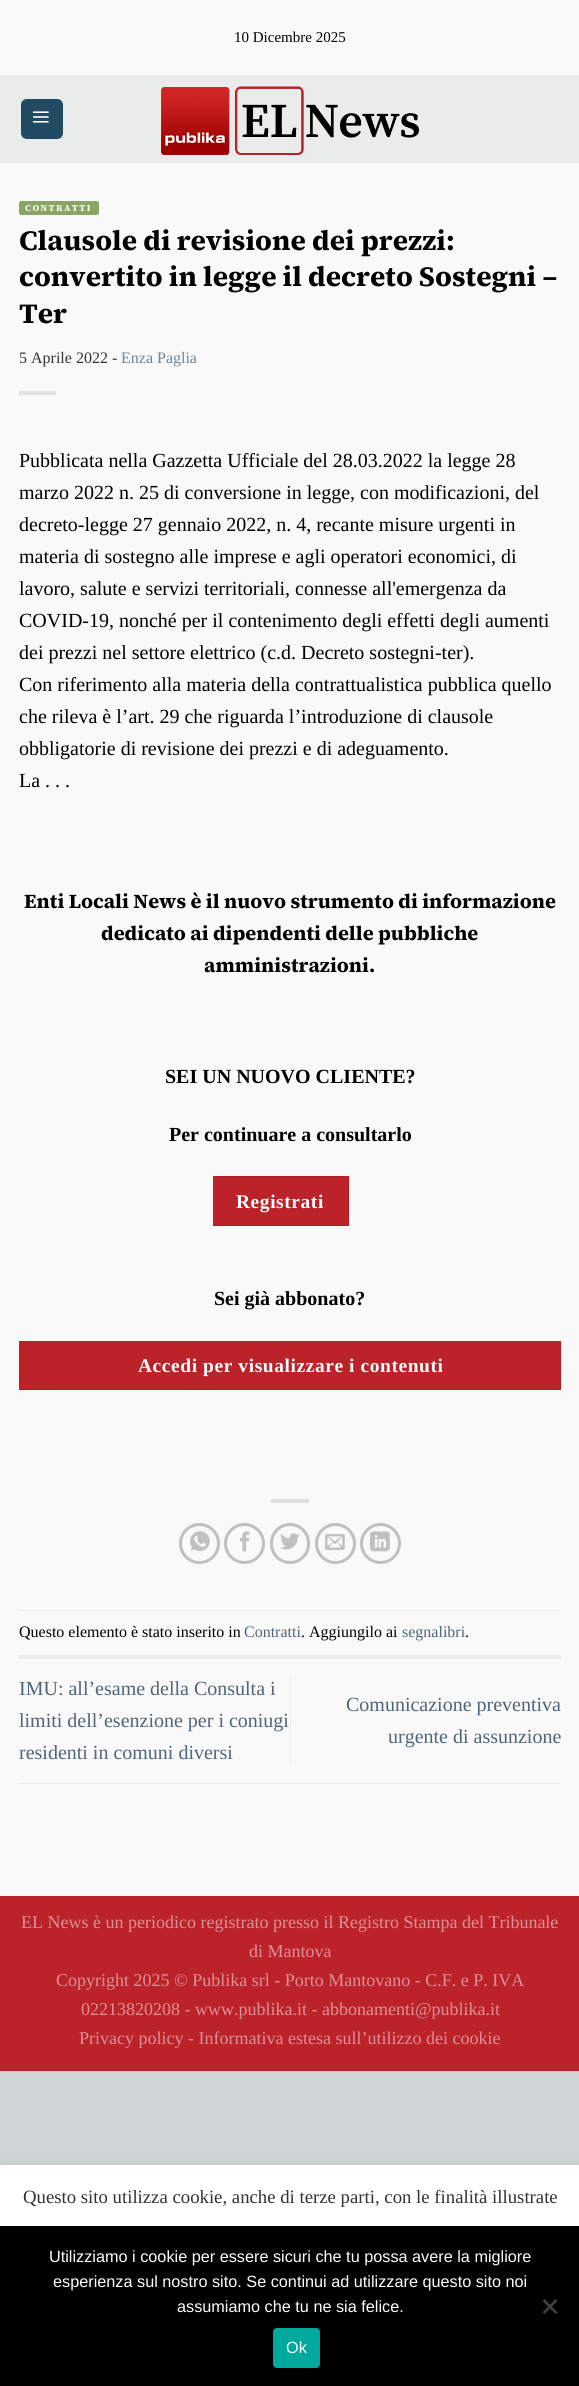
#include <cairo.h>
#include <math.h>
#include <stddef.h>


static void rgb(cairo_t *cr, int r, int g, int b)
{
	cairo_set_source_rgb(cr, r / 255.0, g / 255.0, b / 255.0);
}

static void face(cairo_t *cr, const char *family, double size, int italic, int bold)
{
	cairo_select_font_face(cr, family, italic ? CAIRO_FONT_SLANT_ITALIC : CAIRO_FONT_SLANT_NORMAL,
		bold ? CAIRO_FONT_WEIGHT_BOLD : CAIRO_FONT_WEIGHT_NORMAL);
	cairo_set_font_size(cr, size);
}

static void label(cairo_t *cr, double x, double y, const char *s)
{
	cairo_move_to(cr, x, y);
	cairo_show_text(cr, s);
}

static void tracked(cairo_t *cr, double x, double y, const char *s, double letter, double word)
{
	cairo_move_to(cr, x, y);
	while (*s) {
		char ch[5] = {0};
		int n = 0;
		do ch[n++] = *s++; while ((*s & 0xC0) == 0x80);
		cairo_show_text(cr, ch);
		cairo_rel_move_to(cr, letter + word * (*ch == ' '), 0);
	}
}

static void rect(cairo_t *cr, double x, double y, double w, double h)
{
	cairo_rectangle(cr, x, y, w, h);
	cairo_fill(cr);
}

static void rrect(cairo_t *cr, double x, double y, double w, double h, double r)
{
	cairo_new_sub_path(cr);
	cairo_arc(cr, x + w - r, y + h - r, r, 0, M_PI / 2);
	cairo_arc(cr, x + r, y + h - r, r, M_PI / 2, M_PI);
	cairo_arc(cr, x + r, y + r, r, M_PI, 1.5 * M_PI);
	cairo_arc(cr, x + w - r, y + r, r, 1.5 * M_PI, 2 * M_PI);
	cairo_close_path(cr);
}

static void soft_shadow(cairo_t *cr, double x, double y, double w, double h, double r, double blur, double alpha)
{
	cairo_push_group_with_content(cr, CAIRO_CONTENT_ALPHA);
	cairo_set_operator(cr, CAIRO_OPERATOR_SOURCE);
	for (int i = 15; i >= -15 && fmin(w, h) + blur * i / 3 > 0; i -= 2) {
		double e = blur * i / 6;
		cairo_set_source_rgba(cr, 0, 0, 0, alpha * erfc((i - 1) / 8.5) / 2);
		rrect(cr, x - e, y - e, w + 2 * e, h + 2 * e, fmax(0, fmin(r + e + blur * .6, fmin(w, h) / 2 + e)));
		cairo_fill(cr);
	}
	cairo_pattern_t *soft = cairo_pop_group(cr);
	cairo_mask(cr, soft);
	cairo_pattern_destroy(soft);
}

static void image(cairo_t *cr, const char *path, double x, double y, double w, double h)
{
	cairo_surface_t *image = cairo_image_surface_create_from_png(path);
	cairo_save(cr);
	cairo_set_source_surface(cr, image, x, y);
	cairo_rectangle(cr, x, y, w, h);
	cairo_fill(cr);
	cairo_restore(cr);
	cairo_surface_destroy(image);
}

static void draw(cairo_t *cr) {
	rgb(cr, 205, 212, 211);
	cairo_paint(cr);
	rgb(cr, 249, 249, 249);
	rect(cr, 0, 163, 579, 1733);
	rect(cr, 0, 0, 579, 75);
	face(cr, "Liberation Serif", 15, 0, 0);
	rgb(cr, 0, 0, 0);
	label(cr, 234, 42, "10 Dicembre 2025");
	rgb(cr, 233, 236, 235);
	rect(cr, 0, 75, 579, 88);
	rgb(cr, 33, 75, 99);
	rrect(cr, 21, 99, 42, 40, 6);
	cairo_fill(cr);
	cairo_rectangle(cr, 21.5, 99.5, 41, 39);
	cairo_set_source_rgba(cr, 0, 0, 0, 0.05);
	cairo_set_line_width(cr, 1);
	cairo_stroke(cr);
	image(cr, "image0.png", 32, 111, 17, 12);
	image(cr, "image1.png", 161, 86, 258, 69);
	rgb(cr, 139, 165, 100);
	rrect(cr, 19, 201, 80, 14, 2.5);
	cairo_fill(cr);
	face(cr, "Source Serif 4", 9, 0, 1);
	rgb(cr, 254, 254, 254);
	tracked(cr, 25, 211, "CONTRATTI", 1.4, 0);
	face(cr, "Source Serif 4", 28, 0, 1);
	rgb(cr, 0, 0, 0);
	label(cr, 19, 250, "Clausole di revisione dei prezzi:");
	label(cr, 19, 286, "convertito in legge il decreto Sostegni –");
	label(cr, 19, 323, "Ter");
	face(cr, "Liberation Serif", 16, 0, 0);
	rgb(cr, 50, 50, 50);
	label(cr, 19, 363, "5 Aprile 2022 -");
	rgb(cr, 112, 131, 148);
	label(cr, 121, 363, "Enza Paglia");
	rgb(cr, 224, 224, 224);
	rect(cr, 19, 391, 37, 4);
	face(cr, "Liberation Serif", 20, 0, 0);
	rgb(cr, 0, 0, 0);
	label(cr, 19, 467, "Pubblicata nella Gazzetta Ufficiale del 28.03.2022 la legge 28");
	label(cr, 19, 499, "marzo 2022 n. 25 di conversione in legge, con modificazioni, del");
	label(cr, 19, 531, "decreto-legge 27 gennaio 2022, n. 4, recante misure urgenti in");
	label(cr, 19, 563, "materia di sostegno alle imprese e agli operatori economici, di");
	label(cr, 19, 595, "lavoro, salute e servizi territoriali, connesse all'emergenza da");
	label(cr, 19, 627, "COVID-19, nonché per il contenimento degli effetti degli aumenti");
	label(cr, 19, 659, "dei prezzi nel settore elettrico (c.d. Decreto sostegni-ter).");
	label(cr, 19, 691, "Con riferimento alla materia della contrattualistica pubblica quello");
	label(cr, 19, 723, "che rileva è l’art. 29 che riguarda l’introduzione di clausole");
	label(cr, 19, 755, "obbligatorie di revisione dei prezzi e di adeguamento.");
	label(cr, 19, 787, "La . . .");
	face(cr, "Source Serif 4", 20, 0, 1);
	label(cr, 24, 908, "Enti Locali News è il nuovo strumento di informazione");
	label(cr, 101, 940, "dedicato ai dipendenti delle pubbliche");
	label(cr, 204, 972, "amministrazioni.");
	face(cr, "Liberation Serif", 20, 0, 1);
	label(cr, 165, 1083, "SEI UN NUOVO CLIENTE?");
	label(cr, 169, 1141, "Per continuare a consultarlo");
	rgb(cr, 187, 34, 41);
	cairo_rectangle(cr, 213.5, 1176.5, 135, 49);
	cairo_fill_preserve(cr);
	rgb(cr, 178, 32, 39);
	cairo_stroke(cr);
	face(cr, "Liberation Serif", 19.4, 0, 1);
	rgb(cr, 254, 254, 254);
	tracked(cr, 236, 1208, "Registrati", 0.6, 0);
	face(cr, "Liberation Serif", 20, 0, 1);
	rgb(cr, 0, 0, 0);
	label(cr, 214, 1305, "Sei già abbonato?");
	rgb(cr, 187, 34, 41);
	cairo_rectangle(cr, 19.5, 1341.5, 541, 48);
	cairo_fill_preserve(cr);
	rgb(cr, 178, 32, 39);
	cairo_stroke(cr);
	face(cr, "Liberation Serif", 19.4, 0, 1);
	rgb(cr, 254, 254, 254);
	tracked(cr, 138, 1372, "Accedi per visualizzare i contenuti", 0.6, 0);
	rgb(cr, 224, 224, 224);
	rect(cr, 271, 1499, 38, 4);
	cairo_new_path(cr);
	cairo_arc(cr, 199.5, 1543.5, 19, 0, 2 * M_PI);
	rgb(cr, 192, 192, 192);
	cairo_set_line_width(cr, 3);
	cairo_stroke(cr);
	image(cr, "image2.png", 190, 1531, 20, 21);
	cairo_arc(cr, 244.5, 1543.5, 19, 0, 2 * M_PI);
	cairo_stroke(cr);
	image(cr, "image3.png", 240, 1531, 10, 21);
	rrect(cr, 271.5, 1524.5, 37, 38, 18.5);
	cairo_stroke(cr);
	image(cr, "image4.png", 280, 1533, 20, 17);
	cairo_arc(cr, 335.5, 1543.5, 19, 0, 2 * M_PI);
	cairo_stroke(cr);
	image(cr, "image5.png", 325, 1534, 20, 16);
	cairo_arc(cr, 380.5, 1543.5, 19, 0, 2 * M_PI);
	cairo_stroke(cr);
	image(cr, "image6.png", 370, 1531, 20, 21);
	rgb(cr, 236, 236, 236);
	rect(cr, 19, 1610, 542, 1);
	rect(cr, 19, 1655, 542, 4);
	face(cr, "Liberation Serif", 16, 0, 0);
	rgb(cr, 0, 0, 0);
	label(cr, 19, 1637, "Questo elemento è stato inserito in");
	rgb(cr, 78, 101, 123);
	label(cr, 244, 1637, "Contratti");
	rgb(cr, 0, 0, 0);
	label(cr, 301, 1637, ". Aggiungilo ai");
	rgb(cr, 78, 101, 123);
	label(cr, 402, 1637, "segnalibri");
	rgb(cr, 0, 0, 0);
	label(cr, 465, 1637, ".");
	rgb(cr, 236, 236, 236);
	rect(cr, 19, 1783, 542, 1);
	face(cr, "Liberation Serif", 20, 0, 0);
	rgb(cr, 78, 101, 123);
	label(cr, 19, 1695, "IMU: all’esame della Consulta i");
	label(cr, 19, 1727, "limiti dell’esenzione per i coniugi");
	label(cr, 19, 1759, "residenti in comuni diversi");
	rgb(cr, 236, 236, 236);
	rect(cr, 290, 1674, 1, 92);
	rgb(cr, 78, 101, 123);
	label(cr, 346, 1711, "Comunicazione preventiva");
	label(cr, 388, 1743, "urgente di assunzione");
	rgb(cr, 187, 34, 41);
	rect(cr, 0, 1896, 579, 175);
	face(cr, "Liberation Serif", 18, 0, 0);
	rgb(cr, 221, 145, 148);
	label(cr, 21, 1928, "EL News è un periodico registrato presso il Registro Stampa del Tribunale");
	label(cr, 249, 1957, "di Mantova");
	label(cr, 56, 1986, "Copyright 2025 © Publika srl - Porto Mantovano - C.F. e P. IVA");
	label(cr, 81, 2015, "02213820208 - www.publika.it - abbonamenti@publika.it");
	label(cr, 79, 2044, "Privacy policy - Informativa estesa sull’utilizzo dei cookie");
	rgb(cr, 172, 171, 171);
	soft_shadow(cr, 0, 2164, 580, 221, 0, 6, 0.3);
	rgb(cr, 255, 255, 255);
	rect(cr, 0, 2165, 579, 61);
	face(cr, "Liberation Serif", 18.75, 0, 0);
	rgb(cr, 50, 50, 50);
	label(cr, 23, 2203, "Questo sito utilizza cookie, anche di terze parti, con le finalità illustrate");
	rgb(cr, 0, 0, 0);
	rect(cr, 0, 2226, 579, 160);
	face(cr, "Liberation Sans", 16.25, 0, 0);
	rgb(cr, 254, 254, 254);
	label(cr, 49, 2262, "Utilizziamo i cookie per essere sicuri che tu possa avere la migliore");
	label(cr, 53, 2287, "esperienza sul nostro sito. Se continui ad utilizzare questo sito noi");
	label(cr, 177, 2312, "assumiamo che tu ne sia felice.");
	rgb(cr, 64, 64, 64);
	cairo_new_path(cr);
	cairo_move_to(cr, 555.5, 2299);
	cairo_line_to(cr, 557.5, 2301);
	cairo_line_to(cr, 544.5, 2314);
	cairo_line_to(cr, 542.5, 2312.5);
	cairo_close_path(cr);
	cairo_fill(cr);
	cairo_new_path(cr);
	cairo_move_to(cr, 542.5, 2301);
	cairo_line_to(cr, 544.5, 2299);
	cairo_line_to(cr, 557.5, 2312.5);
	cairo_line_to(cr, 555.5, 2314);
	cairo_close_path(cr);
	cairo_fill(cr);
	rgb(cr, 0, 169, 157);
	rrect(cr, 273, 2328, 47, 40, 4);
	cairo_fill(cr);
	rgb(cr, 254, 254, 254);
	label(cr, 286, 2353, "Ok");
}

int main(void) {
	cairo_surface_t *surface = cairo_image_surface_create(CAIRO_FORMAT_RGB24, 579, 2386);
	cairo_t *cr = cairo_create(surface);
	cairo_font_options_t *options = cairo_font_options_create();
	cairo_font_options_set_hint_metrics(options, CAIRO_HINT_METRICS_OFF);
	cairo_font_options_set_hint_style(options, CAIRO_HINT_STYLE_NONE);
	cairo_set_font_options(cr, options);
	cairo_set_miter_limit(cr, 4);
	draw(cr);
	cairo_surface_write_to_png(surface, "render.png");
	cairo_font_options_destroy(options);
	cairo_destroy(cr);
	cairo_surface_destroy(surface);
	return 0;
}
